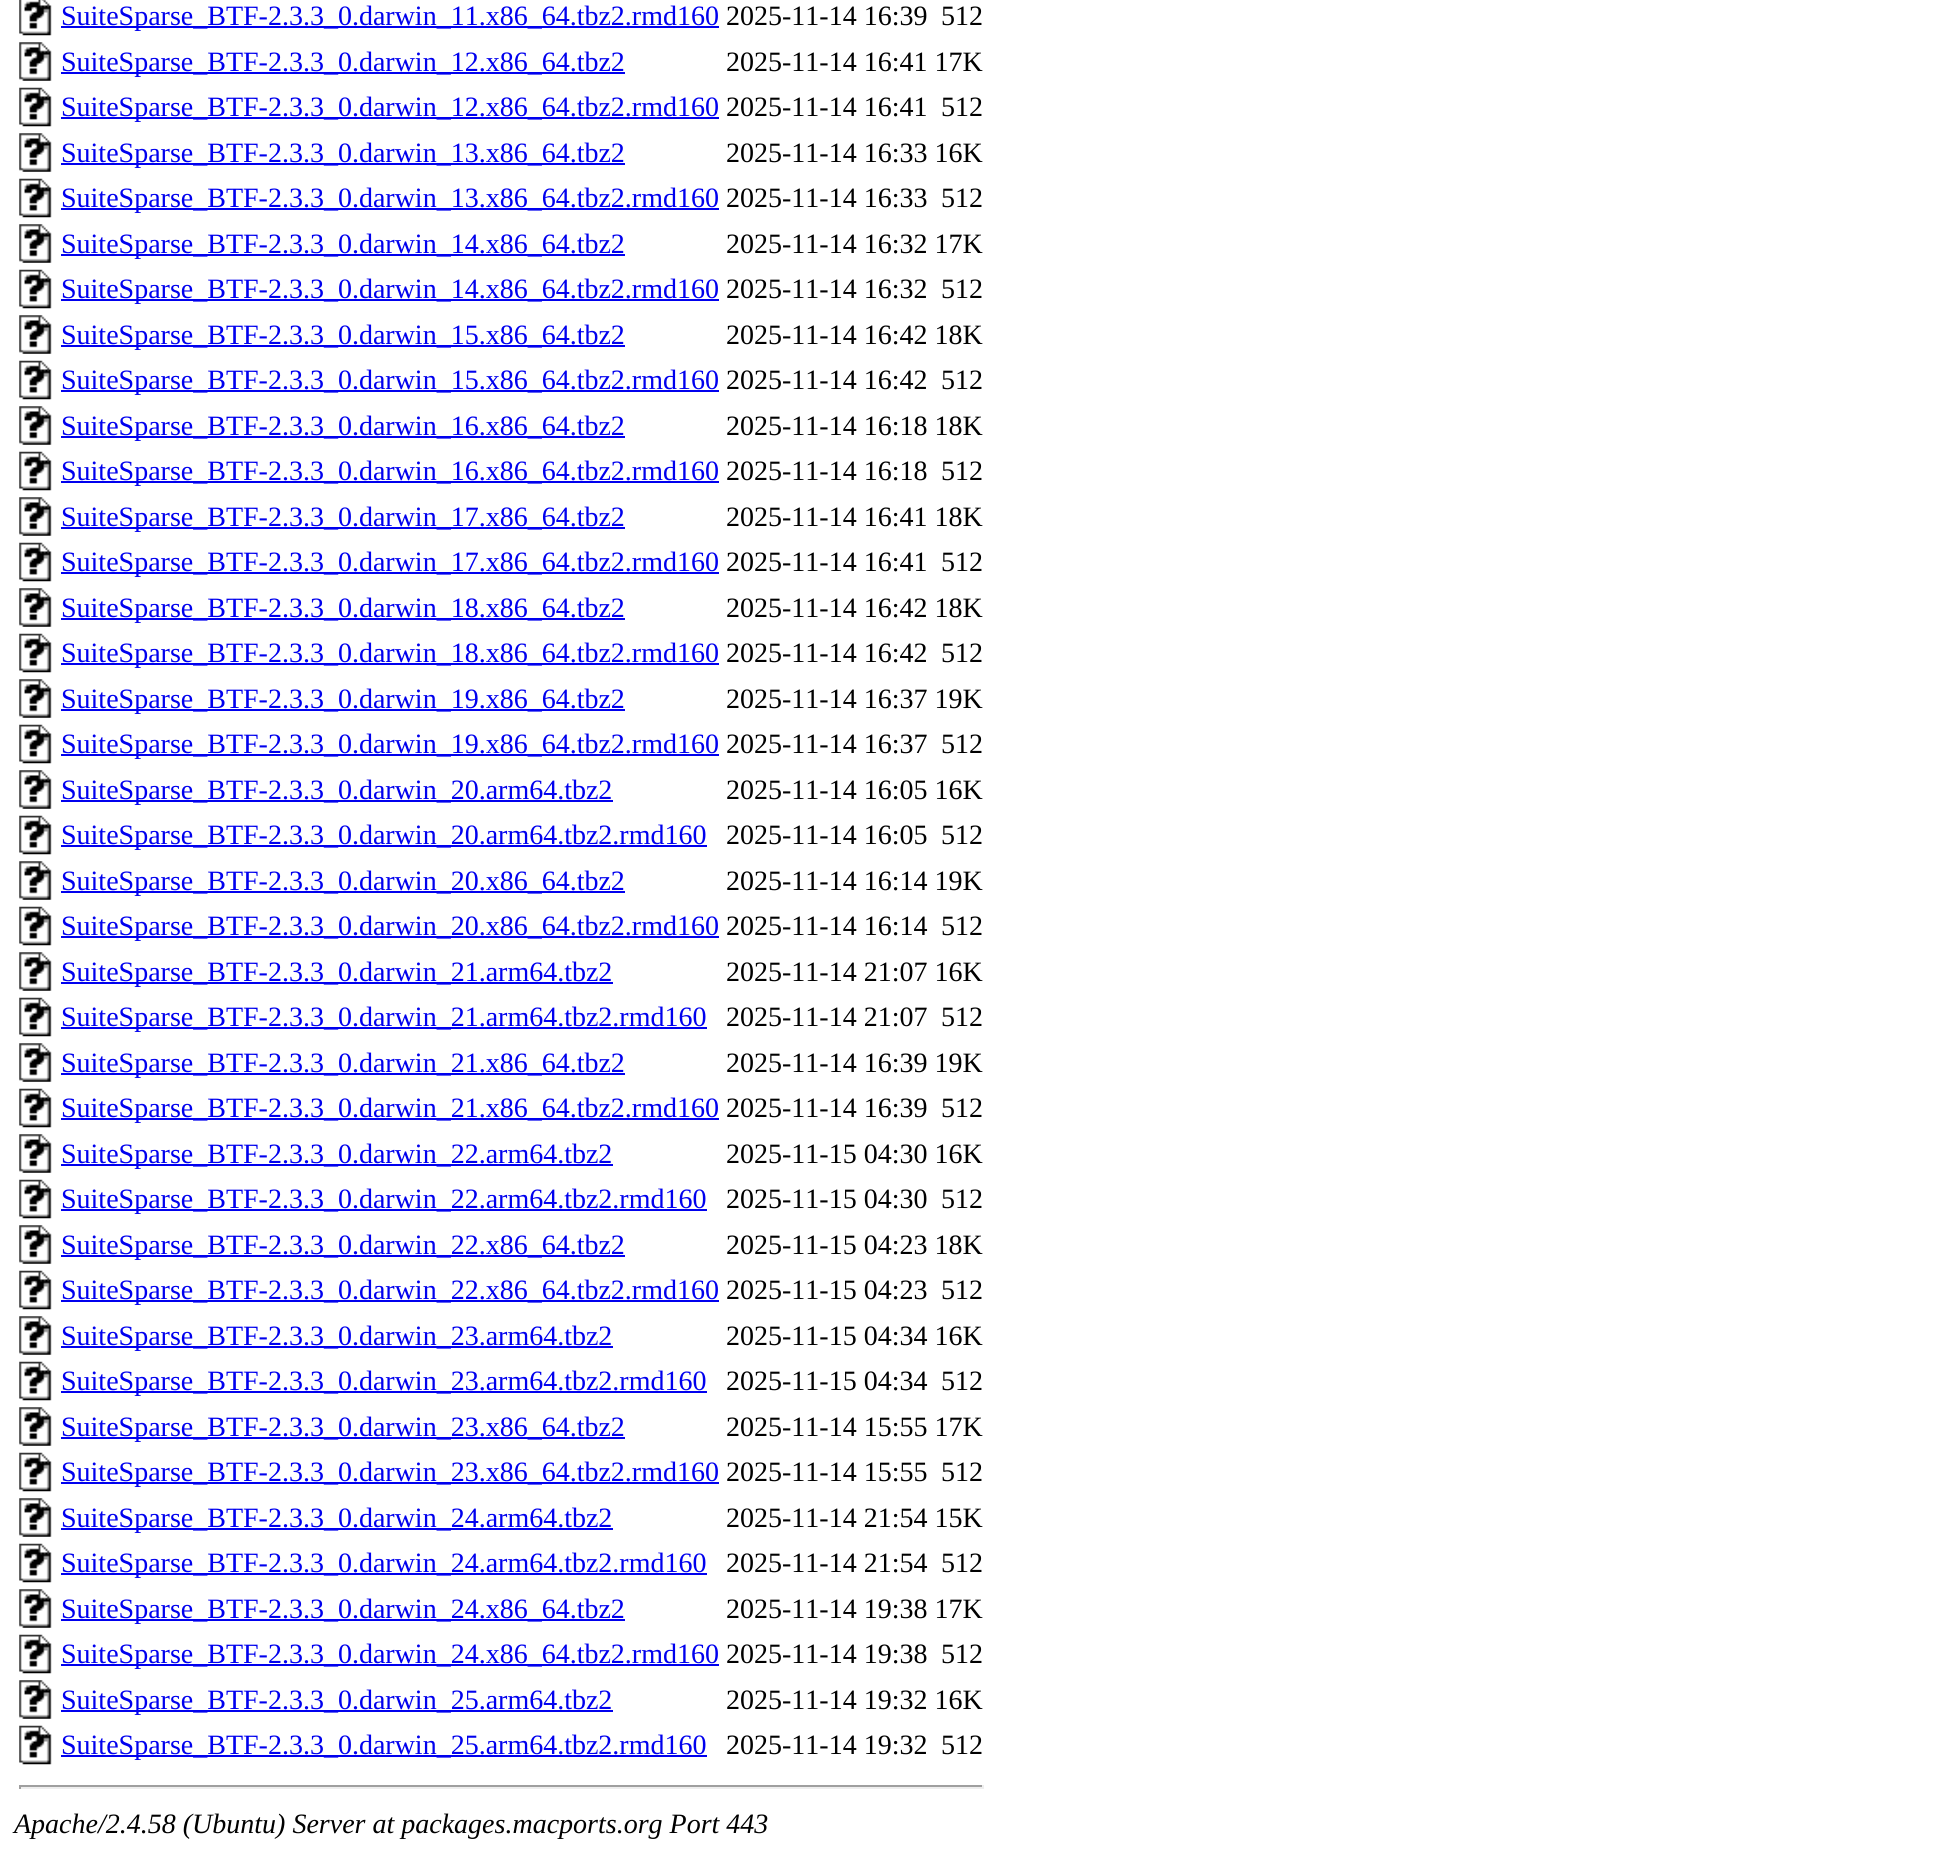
#include <cairo.h>
#include <math.h>
#include <stddef.h>


static void rgb(cairo_t *cr, int r, int g, int b)
{
	cairo_set_source_rgb(cr, r / 255.0, g / 255.0, b / 255.0);
}

static void face(cairo_t *cr, const char *family, double size, int italic, int bold)
{
	cairo_select_font_face(cr, family, italic ? CAIRO_FONT_SLANT_ITALIC : CAIRO_FONT_SLANT_NORMAL,
		bold ? CAIRO_FONT_WEIGHT_BOLD : CAIRO_FONT_WEIGHT_NORMAL);
	cairo_set_font_size(cr, size);
}

static void label(cairo_t *cr, double x, double y, const char *s)
{
	cairo_move_to(cr, x, y);
	cairo_show_text(cr, s);
}

static void rect(cairo_t *cr, double x, double y, double w, double h)
{
	cairo_rectangle(cr, x, y, w, h);
	cairo_fill(cr);
}

static void image(cairo_t *cr, const char *path, double x, double y, double w, double h)
{
	cairo_surface_t *image = cairo_image_surface_create_from_png(path);
	cairo_save(cr);
	cairo_set_source_surface(cr, image, x, y);
	cairo_rectangle(cr, x, y, w, h);
	cairo_fill(cr);
	cairo_restore(cr);
	cairo_surface_destroy(image);
}

static void draw(cairo_t *cr) {
	rgb(cr, 255, 255, 255);
	cairo_paint(cr);
	image(cr, "image0.png", 19, 0, 33, 36);
	rgb(cr, 0, 0, 238);
	rect(cr, 61, 26, 658, 2);
	face(cr, "Liberation Serif", 28, 0, 0);
	label(cr, 61, 25, "SuiteSparse_BTF-2.3.3_0.darwin_11.x86_64.tbz2.rmd160");
	rgb(cr, 0, 0, 0);
	label(cr, 726, 25, "2025-11-14 16:39");
	label(cr, 941, 25, "512");
	image(cr, "image1.png", 19, 42, 33, 39);
	rgb(cr, 0, 0, 238);
	rect(cr, 61, 72, 564, 2);
	label(cr, 61, 71, "SuiteSparse_BTF-2.3.3_0.darwin_12.x86_64.tbz2");
	rgb(cr, 0, 0, 0);
	label(cr, 726, 71, "2025-11-14 16:41 17K");
	image(cr, "image2.png", 19, 87, 33, 40);
	rgb(cr, 0, 0, 238);
	rect(cr, 61, 117, 658, 2);
	label(cr, 61, 116, "SuiteSparse_BTF-2.3.3_0.darwin_12.x86_64.tbz2.rmd160");
	rgb(cr, 0, 0, 0);
	label(cr, 726, 116, "2025-11-14 16:41");
	label(cr, 941, 116, "512");
	image(cr, "image1.png", 19, 133, 33, 39);
	rgb(cr, 0, 0, 238);
	rect(cr, 61, 163, 564, 2);
	label(cr, 61, 162, "SuiteSparse_BTF-2.3.3_0.darwin_13.x86_64.tbz2");
	rgb(cr, 0, 0, 0);
	label(cr, 726, 162, "2025-11-14 16:33 16K");
	image(cr, "image2.png", 19, 178, 33, 40);
	rgb(cr, 0, 0, 238);
	rect(cr, 61, 208, 658, 2);
	label(cr, 61, 207, "SuiteSparse_BTF-2.3.3_0.darwin_13.x86_64.tbz2.rmd160");
	rgb(cr, 0, 0, 0);
	label(cr, 726, 207, "2025-11-14 16:33");
	label(cr, 941, 207, "512");
	image(cr, "image1.png", 19, 224, 33, 39);
	rgb(cr, 0, 0, 238);
	rect(cr, 61, 254, 564, 2);
	label(cr, 61, 253, "SuiteSparse_BTF-2.3.3_0.darwin_14.x86_64.tbz2");
	rgb(cr, 0, 0, 0);
	label(cr, 726, 253, "2025-11-14 16:32 17K");
	image(cr, "image2.png", 19, 269, 33, 40);
	rgb(cr, 0, 0, 238);
	rect(cr, 61, 299, 658, 2);
	label(cr, 61, 298, "SuiteSparse_BTF-2.3.3_0.darwin_14.x86_64.tbz2.rmd160");
	rgb(cr, 0, 0, 0);
	label(cr, 726, 298, "2025-11-14 16:32");
	label(cr, 941, 298, "512");
	image(cr, "image1.png", 19, 315, 33, 39);
	rgb(cr, 0, 0, 238);
	rect(cr, 61, 345, 564, 2);
	label(cr, 61, 344, "SuiteSparse_BTF-2.3.3_0.darwin_15.x86_64.tbz2");
	rgb(cr, 0, 0, 0);
	label(cr, 726, 344, "2025-11-14 16:42 18K");
	image(cr, "image2.png", 19, 360, 33, 40);
	rgb(cr, 0, 0, 238);
	rect(cr, 61, 390, 658, 2);
	label(cr, 61, 389, "SuiteSparse_BTF-2.3.3_0.darwin_15.x86_64.tbz2.rmd160");
	rgb(cr, 0, 0, 0);
	label(cr, 726, 389, "2025-11-14 16:42");
	label(cr, 941, 389, "512");
	image(cr, "image1.png", 19, 406, 33, 39);
	rgb(cr, 0, 0, 238);
	rect(cr, 61, 436, 564, 2);
	label(cr, 61, 435, "SuiteSparse_BTF-2.3.3_0.darwin_16.x86_64.tbz2");
	rgb(cr, 0, 0, 0);
	label(cr, 726, 435, "2025-11-14 16:18 18K");
	image(cr, "image2.png", 19, 451, 33, 40);
	rgb(cr, 0, 0, 238);
	rect(cr, 61, 481, 658, 2);
	label(cr, 61, 480, "SuiteSparse_BTF-2.3.3_0.darwin_16.x86_64.tbz2.rmd160");
	rgb(cr, 0, 0, 0);
	label(cr, 726, 480, "2025-11-14 16:18");
	label(cr, 941, 480, "512");
	image(cr, "image1.png", 19, 497, 33, 39);
	rgb(cr, 0, 0, 238);
	rect(cr, 61, 527, 564, 2);
	label(cr, 61, 526, "SuiteSparse_BTF-2.3.3_0.darwin_17.x86_64.tbz2");
	rgb(cr, 0, 0, 0);
	label(cr, 726, 526, "2025-11-14 16:41 18K");
	image(cr, "image2.png", 19, 542, 33, 40);
	rgb(cr, 0, 0, 238);
	rect(cr, 61, 572, 658, 2);
	label(cr, 61, 571, "SuiteSparse_BTF-2.3.3_0.darwin_17.x86_64.tbz2.rmd160");
	rgb(cr, 0, 0, 0);
	label(cr, 726, 571, "2025-11-14 16:41");
	label(cr, 941, 571, "512");
	image(cr, "image1.png", 19, 588, 33, 39);
	rgb(cr, 0, 0, 238);
	rect(cr, 61, 618, 564, 2);
	label(cr, 61, 617, "SuiteSparse_BTF-2.3.3_0.darwin_18.x86_64.tbz2");
	rgb(cr, 0, 0, 0);
	label(cr, 726, 617, "2025-11-14 16:42 18K");
	image(cr, "image2.png", 19, 633, 33, 40);
	rgb(cr, 0, 0, 238);
	rect(cr, 61, 663, 658, 2);
	label(cr, 61, 662, "SuiteSparse_BTF-2.3.3_0.darwin_18.x86_64.tbz2.rmd160");
	rgb(cr, 0, 0, 0);
	label(cr, 726, 662, "2025-11-14 16:42");
	label(cr, 941, 662, "512");
	image(cr, "image1.png", 19, 679, 33, 39);
	rgb(cr, 0, 0, 238);
	rect(cr, 61, 709, 564, 2);
	label(cr, 61, 708, "SuiteSparse_BTF-2.3.3_0.darwin_19.x86_64.tbz2");
	rgb(cr, 0, 0, 0);
	label(cr, 726, 708, "2025-11-14 16:37 19K");
	image(cr, "image2.png", 19, 724, 33, 40);
	rgb(cr, 0, 0, 238);
	rect(cr, 61, 754, 658, 2);
	label(cr, 61, 753, "SuiteSparse_BTF-2.3.3_0.darwin_19.x86_64.tbz2.rmd160");
	rgb(cr, 0, 0, 0);
	label(cr, 726, 753, "2025-11-14 16:37");
	label(cr, 941, 753, "512");
	image(cr, "image1.png", 19, 770, 33, 39);
	rgb(cr, 0, 0, 238);
	rect(cr, 61, 800, 552, 2);
	label(cr, 61, 799, "SuiteSparse_BTF-2.3.3_0.darwin_20.arm64.tbz2");
	rgb(cr, 0, 0, 0);
	label(cr, 726, 799, "2025-11-14 16:05 16K");
	image(cr, "image2.png", 19, 815, 33, 40);
	rgb(cr, 0, 0, 238);
	rect(cr, 61, 845, 646, 2);
	label(cr, 61, 844, "SuiteSparse_BTF-2.3.3_0.darwin_20.arm64.tbz2.rmd160");
	rgb(cr, 0, 0, 0);
	label(cr, 726, 844, "2025-11-14 16:05");
	label(cr, 941, 844, "512");
	image(cr, "image1.png", 19, 861, 33, 39);
	rgb(cr, 0, 0, 238);
	rect(cr, 61, 891, 564, 2);
	label(cr, 61, 890, "SuiteSparse_BTF-2.3.3_0.darwin_20.x86_64.tbz2");
	rgb(cr, 0, 0, 0);
	label(cr, 726, 890, "2025-11-14 16:14 19K");
	image(cr, "image2.png", 19, 906, 33, 40);
	rgb(cr, 0, 0, 238);
	rect(cr, 61, 936, 658, 2);
	label(cr, 61, 935, "SuiteSparse_BTF-2.3.3_0.darwin_20.x86_64.tbz2.rmd160");
	rgb(cr, 0, 0, 0);
	label(cr, 726, 935, "2025-11-14 16:14");
	label(cr, 941, 935, "512");
	image(cr, "image1.png", 19, 952, 33, 39);
	rgb(cr, 0, 0, 238);
	rect(cr, 61, 982, 552, 2);
	label(cr, 61, 981, "SuiteSparse_BTF-2.3.3_0.darwin_21.arm64.tbz2");
	rgb(cr, 0, 0, 0);
	label(cr, 726, 981, "2025-11-14 21:07 16K");
	image(cr, "image2.png", 19, 997, 33, 40);
	rgb(cr, 0, 0, 238);
	rect(cr, 61, 1027, 646, 2);
	label(cr, 61, 1026, "SuiteSparse_BTF-2.3.3_0.darwin_21.arm64.tbz2.rmd160");
	rgb(cr, 0, 0, 0);
	label(cr, 726, 1026, "2025-11-14 21:07");
	label(cr, 941, 1026, "512");
	image(cr, "image3.png", 19, 1043, 33, 39);
	rgb(cr, 0, 0, 238);
	rect(cr, 61, 1073, 564, 2);
	label(cr, 61, 1072, "SuiteSparse_BTF-2.3.3_0.darwin_21.x86_64.tbz2");
	rgb(cr, 0, 0, 0);
	label(cr, 726, 1072, "2025-11-14 16:39 19K");
	image(cr, "image2.png", 19, 1088, 33, 40);
	rgb(cr, 0, 0, 238);
	rect(cr, 61, 1118, 658, 2);
	label(cr, 61, 1117, "SuiteSparse_BTF-2.3.3_0.darwin_21.x86_64.tbz2.rmd160");
	rgb(cr, 0, 0, 0);
	label(cr, 726, 1117, "2025-11-14 16:39");
	label(cr, 941, 1117, "512");
	image(cr, "image4.png", 19, 1134, 33, 39);
	rgb(cr, 0, 0, 238);
	rect(cr, 61, 1164, 552, 2);
	label(cr, 61, 1163, "SuiteSparse_BTF-2.3.3_0.darwin_22.arm64.tbz2");
	rgb(cr, 0, 0, 0);
	label(cr, 726, 1163, "2025-11-15 04:30 16K");
	image(cr, "image2.png", 19, 1179, 33, 40);
	rgb(cr, 0, 0, 238);
	rect(cr, 61, 1209, 646, 2);
	label(cr, 61, 1208, "SuiteSparse_BTF-2.3.3_0.darwin_22.arm64.tbz2.rmd160");
	rgb(cr, 0, 0, 0);
	label(cr, 726, 1208, "2025-11-15 04:30");
	label(cr, 941, 1208, "512");
	image(cr, "image5.png", 19, 1225, 33, 39);
	rgb(cr, 0, 0, 238);
	rect(cr, 61, 1255, 564, 2);
	label(cr, 61, 1254, "SuiteSparse_BTF-2.3.3_0.darwin_22.x86_64.tbz2");
	rgb(cr, 0, 0, 0);
	label(cr, 726, 1254, "2025-11-15 04:23 18K");
	image(cr, "image2.png", 19, 1270, 33, 40);
	rgb(cr, 0, 0, 238);
	rect(cr, 61, 1300, 658, 2);
	label(cr, 61, 1299, "SuiteSparse_BTF-2.3.3_0.darwin_22.x86_64.tbz2.rmd160");
	rgb(cr, 0, 0, 0);
	label(cr, 726, 1299, "2025-11-15 04:23");
	label(cr, 941, 1299, "512");
	image(cr, "image1.png", 19, 1316, 33, 39);
	rgb(cr, 0, 0, 238);
	rect(cr, 61, 1346, 552, 2);
	label(cr, 61, 1345, "SuiteSparse_BTF-2.3.3_0.darwin_23.arm64.tbz2");
	rgb(cr, 0, 0, 0);
	label(cr, 726, 1345, "2025-11-15 04:34 16K");
	image(cr, "image2.png", 19, 1361, 33, 40);
	rgb(cr, 0, 0, 238);
	rect(cr, 61, 1391, 646, 2);
	label(cr, 61, 1390, "SuiteSparse_BTF-2.3.3_0.darwin_23.arm64.tbz2.rmd160");
	rgb(cr, 0, 0, 0);
	label(cr, 726, 1390, "2025-11-15 04:34");
	label(cr, 941, 1390, "512");
	image(cr, "image1.png", 19, 1407, 33, 39);
	rgb(cr, 0, 0, 238);
	rect(cr, 61, 1437, 564, 2);
	label(cr, 61, 1436, "SuiteSparse_BTF-2.3.3_0.darwin_23.x86_64.tbz2");
	rgb(cr, 0, 0, 0);
	label(cr, 726, 1436, "2025-11-14 15:55 17K");
	image(cr, "image2.png", 19, 1452, 33, 40);
	rgb(cr, 0, 0, 238);
	rect(cr, 61, 1482, 658, 2);
	label(cr, 61, 1481, "SuiteSparse_BTF-2.3.3_0.darwin_23.x86_64.tbz2.rmd160");
	rgb(cr, 0, 0, 0);
	label(cr, 726, 1481, "2025-11-14 15:55");
	label(cr, 941, 1481, "512");
	image(cr, "image1.png", 19, 1498, 33, 39);
	rgb(cr, 0, 0, 238);
	rect(cr, 61, 1528, 552, 2);
	label(cr, 61, 1527, "SuiteSparse_BTF-2.3.3_0.darwin_24.arm64.tbz2");
	rgb(cr, 0, 0, 0);
	label(cr, 726, 1527, "2025-11-14 21:54 15K");
	image(cr, "image2.png", 19, 1543, 33, 40);
	rgb(cr, 0, 0, 238);
	rect(cr, 61, 1573, 646, 2);
	label(cr, 61, 1572, "SuiteSparse_BTF-2.3.3_0.darwin_24.arm64.tbz2.rmd160");
	rgb(cr, 0, 0, 0);
	label(cr, 726, 1572, "2025-11-14 21:54");
	label(cr, 941, 1572, "512");
	image(cr, "image1.png", 19, 1589, 33, 39);
	rgb(cr, 0, 0, 238);
	rect(cr, 61, 1619, 564, 2);
	label(cr, 61, 1618, "SuiteSparse_BTF-2.3.3_0.darwin_24.x86_64.tbz2");
	rgb(cr, 0, 0, 0);
	label(cr, 726, 1618, "2025-11-14 19:38 17K");
	image(cr, "image2.png", 19, 1634, 33, 40);
	rgb(cr, 0, 0, 238);
	rect(cr, 61, 1664, 658, 2);
	label(cr, 61, 1663, "SuiteSparse_BTF-2.3.3_0.darwin_24.x86_64.tbz2.rmd160");
	rgb(cr, 0, 0, 0);
	label(cr, 726, 1663, "2025-11-14 19:38");
	label(cr, 941, 1663, "512");
	image(cr, "image1.png", 19, 1680, 33, 39);
	rgb(cr, 0, 0, 238);
	rect(cr, 61, 1710, 552, 2);
	label(cr, 61, 1709, "SuiteSparse_BTF-2.3.3_0.darwin_25.arm64.tbz2");
	rgb(cr, 0, 0, 0);
	label(cr, 726, 1709, "2025-11-14 19:32 16K");
	image(cr, "image2.png", 19, 1725, 33, 40);
	rgb(cr, 0, 0, 238);
	rect(cr, 61, 1755, 646, 2);
	label(cr, 61, 1754, "SuiteSparse_BTF-2.3.3_0.darwin_25.arm64.tbz2.rmd160");
	rgb(cr, 0, 0, 0);
	label(cr, 726, 1754, "2025-11-14 19:32");
	label(cr, 941, 1754, "512");
	rgb(cr, 159, 159, 159);
	rect(cr, 19, 1785, 965, 2);
	rgb(cr, 238, 238, 238);
	rect(cr, 982, 1785, 2, 4);
	rect(cr, 19, 1787, 965, 2);
	rgb(cr, 159, 159, 159);
	rect(cr, 19, 1785, 2, 4);
	face(cr, "Liberation Serif", 28, 1, 0);
	rgb(cr, 0, 0, 0);
	label(cr, 14, 1833, "Apache/2.4.58 (Ubuntu) Server at packages.macports.org Port 443");
}

int main(void) {
	cairo_surface_t *surface = cairo_image_surface_create(CAIRO_FORMAT_RGB24, 1946, 1852);
	cairo_t *cr = cairo_create(surface);
	cairo_font_options_t *options = cairo_font_options_create();
	cairo_font_options_set_hint_metrics(options, CAIRO_HINT_METRICS_OFF);
	cairo_font_options_set_hint_style(options, CAIRO_HINT_STYLE_NONE);
	cairo_set_font_options(cr, options);
	cairo_set_miter_limit(cr, 4);
	draw(cr);
	cairo_surface_write_to_png(surface, "render.png");
	cairo_font_options_destroy(options);
	cairo_destroy(cr);
	cairo_surface_destroy(surface);
	return 0;
}
